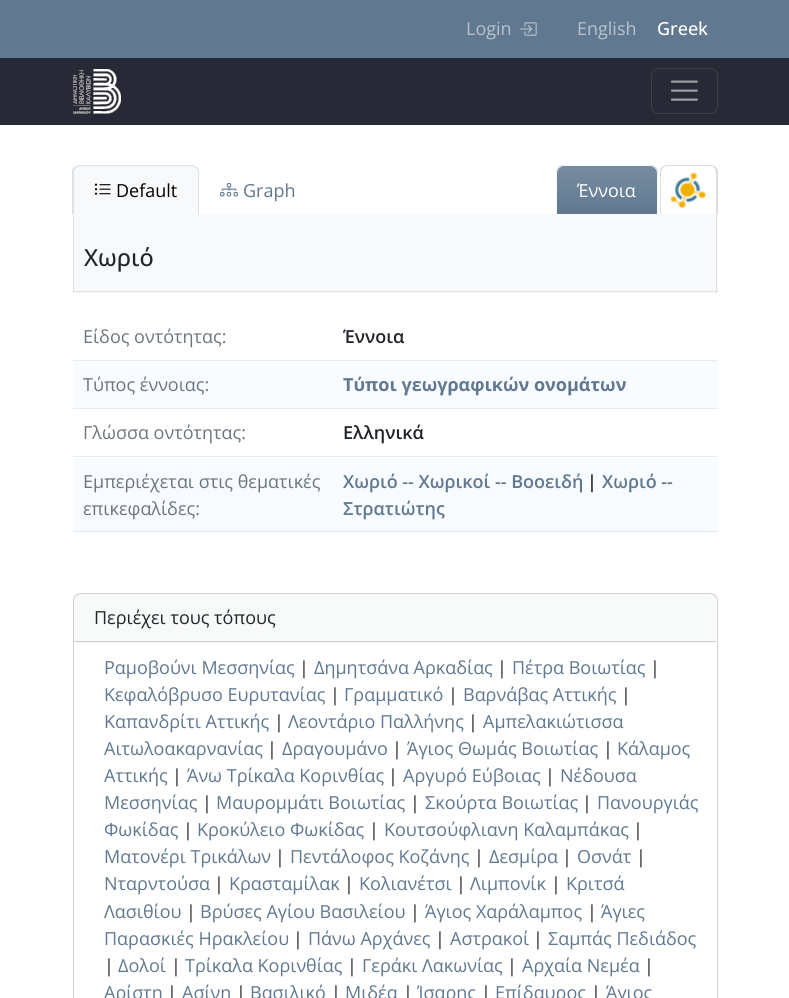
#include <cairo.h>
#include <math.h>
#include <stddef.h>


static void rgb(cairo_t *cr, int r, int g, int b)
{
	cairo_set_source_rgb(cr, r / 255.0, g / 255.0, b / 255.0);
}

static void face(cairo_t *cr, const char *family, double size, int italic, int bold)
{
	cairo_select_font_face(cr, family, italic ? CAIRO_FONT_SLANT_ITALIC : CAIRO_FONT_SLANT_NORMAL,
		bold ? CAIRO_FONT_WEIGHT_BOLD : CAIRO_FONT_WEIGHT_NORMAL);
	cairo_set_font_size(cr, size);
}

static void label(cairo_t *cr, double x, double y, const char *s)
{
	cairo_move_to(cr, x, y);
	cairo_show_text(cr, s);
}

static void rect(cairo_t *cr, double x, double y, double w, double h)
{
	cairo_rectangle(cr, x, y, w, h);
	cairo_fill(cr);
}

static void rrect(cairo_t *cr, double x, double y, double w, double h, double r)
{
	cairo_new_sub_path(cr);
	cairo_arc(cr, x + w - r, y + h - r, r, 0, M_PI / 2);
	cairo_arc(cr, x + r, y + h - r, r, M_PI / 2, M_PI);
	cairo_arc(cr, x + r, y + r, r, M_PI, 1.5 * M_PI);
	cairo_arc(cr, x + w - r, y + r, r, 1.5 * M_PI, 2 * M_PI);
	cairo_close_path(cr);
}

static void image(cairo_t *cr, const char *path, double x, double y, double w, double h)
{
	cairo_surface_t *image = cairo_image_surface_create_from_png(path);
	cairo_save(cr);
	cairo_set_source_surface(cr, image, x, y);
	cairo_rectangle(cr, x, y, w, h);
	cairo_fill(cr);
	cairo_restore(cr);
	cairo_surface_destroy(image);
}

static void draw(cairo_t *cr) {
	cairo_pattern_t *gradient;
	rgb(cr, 255, 255, 255);
	cairo_paint(cr);
	rgb(cr, 96, 120, 144);
	rect(cr, 0, 0, 789, 58);
	face(cr, "Open Sans", 18, 0, 0);
	rgb(cr, 183, 194, 205);
	label(cr, 466, 35, "Login");
	image(cr, "image0.png", 520, 22, 17, 14);
	label(cr, 577, 35, "English");
	face(cr, "Open Sans Medium", 18, 0, 0);
	rgb(cr, 255, 255, 255);
	label(cr, 657, 35, "Greek");
	rgb(cr, 39, 42, 54);
	rect(cr, 0, 58, 789, 67);
	image(cr, "image1.png", 73, 69, 48, 45);
	rrect(cr, 651.5, 68.5, 66, 45, 7.5);
	rgb(cr, 61, 63, 74);
	cairo_set_line_width(cr, 1);
	cairo_stroke(cr);
	image(cr, "image2.png", 670, 80, 28, 21);
	rgb(cr, 248, 249, 250);
	rect(cr, 74, 214, 644, 79);
	rgb(cr, 222, 226, 230);
	rect(cr, 716, 214, 1, 79);
	rect(cr, 73, 291, 645, 1);
	rect(cr, 73, 214, 1, 79);
	rgb(cr, 248, 249, 250);
	cairo_new_path(cr);
	cairo_move_to(cr, 81, 165);
	cairo_line_to(cr, 191, 165);
	cairo_curve_to(cr, 195.5, 165, 199, 168.5, 199, 173);
	cairo_line_to(cr, 199, 215);
	cairo_line_to(cr, 73, 215);
	cairo_line_to(cr, 73, 173);
	cairo_curve_to(cr, 73, 168.5, 76.5, 165, 81, 165);
	cairo_close_path(cr);
	cairo_fill(cr);
	rgb(cr, 222, 226, 230);
	cairo_new_path(cr);
	cairo_move_to(cr, 80, 165);
	cairo_curve_to(cr, 78, 165, 76, 166, 74, 167);
	cairo_line_to(cr, 76, 168);
	cairo_curve_to(cr, 77, 167, 78, 166, 80, 166);
	cairo_line_to(cr, 191, 166);
	cairo_curve_to(cr, 193, 166, 195, 167, 196, 168);
	cairo_line_to(cr, 197, 167);
	cairo_curve_to(cr, 195, 166, 193, 165, 191, 165);
	cairo_close_path(cr);
	cairo_fill(cr);
	cairo_new_path(cr);
	cairo_move_to(cr, 199, 170);
	cairo_line_to(cr, 199, 215);
	cairo_line_to(cr, 198, 214);
	cairo_line_to(cr, 198, 172);
	cairo_curve_to(cr, 198, 170, 197, 169, 196, 168);
	cairo_line_to(cr, 197, 167);
	cairo_close_path(cr);
	cairo_fill(cr);
	rgb(cr, 248, 249, 250);
	cairo_new_path(cr);
	cairo_move_to(cr, 199, 215);
	cairo_line_to(cr, 198, 214);
	cairo_line_to(cr, 74, 214);
	cairo_line_to(cr, 72, 215);
	cairo_close_path(cr);
	cairo_fill(cr);
	rgb(cr, 222, 226, 230);
	cairo_new_path(cr);
	cairo_move_to(cr, 72, 215);
	cairo_line_to(cr, 72, 170);
	cairo_line_to(cr, 74, 167);
	cairo_line_to(cr, 76, 168);
	cairo_curve_to(cr, 75, 169, 74, 171, 74, 172);
	cairo_line_to(cr, 74, 214);
	cairo_close_path(cr);
	cairo_fill(cr);
	image(cr, "image3.png", 94, 183, 17, 12);
	face(cr, "Open Sans", 18, 0, 0);
	rgb(cr, 0, 0, 0);
	label(cr, 116, 197, "Default");
	image(cr, "image4.png", 220, 183, 18, 14);
	rgb(cr, 96, 120, 144);
	label(cr, 243, 197, "Graph");
	cairo_new_path(cr);
	cairo_move_to(cr, 564, 165);
	cairo_line_to(cr, 650, 165);
	cairo_curve_to(cr, 654.5, 165, 658, 168.5, 658, 173);
	cairo_line_to(cr, 658, 215);
	cairo_line_to(cr, 556, 215);
	cairo_line_to(cr, 556, 173);
	cairo_curve_to(cr, 556, 168.5, 559.5, 165, 564, 165);
	cairo_close_path(cr);
	cairo_fill(cr);
	cairo_save(cr);
	cairo_new_path(cr);
	cairo_move_to(cr, 564, 165);
	cairo_line_to(cr, 650, 165);
	cairo_curve_to(cr, 654.5, 165, 658, 168.5, 658, 173);
	cairo_line_to(cr, 658, 215);
	cairo_line_to(cr, 556, 215);
	cairo_line_to(cr, 556, 173);
	cairo_curve_to(cr, 556, 168.5, 559.5, 165, 564, 165);
	cairo_close_path(cr);
	cairo_clip(cr);
	gradient = cairo_pattern_create_linear(607, 166, 607, 214);
	cairo_pattern_add_color_stop_rgba(gradient, 0, 1, 1, 1, 0.15);
	cairo_pattern_add_color_stop_rgba(gradient, 1, 1, 1, 1, 0);
	cairo_set_source(cr, gradient);
	cairo_pattern_destroy(gradient);
	rect(cr, 556, 166, 102, 41);
	cairo_restore(cr);
	cairo_new_path(cr);
	cairo_move_to(cr, 564, 165.5);
	cairo_line_to(cr, 650, 165.5);
	cairo_curve_to(cr, 654, 165.5, 657.5, 169, 657.5, 173);
	cairo_line_to(cr, 657.5, 214.5);
	cairo_line_to(cr, 556.5, 214.5);
	cairo_line_to(cr, 556.5, 173);
	cairo_curve_to(cr, 556.5, 169, 560, 165.5, 564, 165.5);
	cairo_close_path(cr);
	rgb(cr, 248, 249, 250);
	cairo_stroke(cr);
	rgb(cr, 255, 255, 255);
	label(cr, 577, 197, "Έννοια");
	rgb(cr, 221, 221, 221);
	cairo_set_fill_rule(cr, CAIRO_FILL_RULE_EVEN_ODD);
	cairo_new_path(cr);
	cairo_move_to(cr, 668, 165);
	cairo_line_to(cr, 710, 165);
	cairo_curve_to(cr, 714, 165, 718, 168, 718, 172);
	cairo_line_to(cr, 718, 214);
	cairo_line_to(cr, 660, 214);
	cairo_line_to(cr, 660, 172);
	cairo_curve_to(cr, 660, 168, 663, 165, 668, 165);
	cairo_close_path(cr);
	cairo_move_to(cr, 668, 166);
	cairo_line_to(cr, 710, 166);
	cairo_curve_to(cr, 713, 166, 716, 169, 716, 172);
	cairo_line_to(cr, 716, 214);
	cairo_line_to(cr, 661, 214);
	cairo_line_to(cr, 661, 172);
	cairo_curve_to(cr, 661, 169, 664, 166, 668, 166);
	cairo_close_path(cr);
	cairo_fill(cr);
	image(cr, "image5.png", 671, 172, 36, 36);
	face(cr, "Open Sans Medium", 23.5, 0, 0);
	rgb(cr, 33, 37, 41);
	label(cr, 84, 266, "Χωριό");
	rgb(cr, 233, 236, 239);
	rect(cr, 73, 360, 645, 1);
	face(cr, "Open Sans", 18, 0, 0);
	rgb(cr, 108, 117, 125);
	label(cr, 83, 343, "Είδος οντότητας:");
	face(cr, "Open Sans SemiBold", 18, 0, 0);
	rgb(cr, 33, 37, 41);
	label(cr, 343, 343, "Έννοια");
	rgb(cr, 248, 251, 255);
	rect(cr, 73, 361, 645, 47);
	rgb(cr, 233, 236, 239);
	rect(cr, 73, 408, 645, 1);
	face(cr, "Open Sans", 18, 0, 0);
	rgb(cr, 108, 117, 125);
	label(cr, 83, 391, "Τύπος έννοιας:");
	face(cr, "Open Sans", 18, 0, 1);
	rgb(cr, 96, 120, 144);
	label(cr, 343, 391, "Τύποι γεωγραφικών ονομάτων");
	rgb(cr, 233, 236, 239);
	rect(cr, 73, 456, 645, 1);
	face(cr, "Open Sans", 18, 0, 0);
	rgb(cr, 108, 117, 125);
	label(cr, 83, 439, "Γλώσσα οντότητας:");
	face(cr, "Open Sans SemiBold", 18, 0, 0);
	rgb(cr, 33, 37, 41);
	label(cr, 343, 439, "Ελληνικά");
	rgb(cr, 248, 251, 255);
	rect(cr, 73, 458, 645, 75);
	rgb(cr, 233, 236, 239);
	rect(cr, 73, 531, 645, 1);
	face(cr, "Open Sans", 18, 0, 0);
	rgb(cr, 108, 117, 125);
	label(cr, 83, 488, "Εμπεριέχεται στις θεματικές");
	label(cr, 83, 515, "επικεφαλίδες:");
	face(cr, "Open Sans SemiBold", 18, 0, 0);
	rgb(cr, 96, 120, 144);
	label(cr, 343, 488, "Χωριό -- Χωρικοί -- Βοοειδή");
	rgb(cr, 33, 37, 41);
	label(cr, 587, 488, "|");
	rgb(cr, 96, 120, 144);
	label(cr, 602, 488, "Χωριό --");
	label(cr, 343, 515, "Στρατιώτης");
	rrect(cr, 73.5, 593.5, 644, 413, 7.5);
	rgb(cr, 210, 210, 210);
	cairo_stroke(cr);
	cairo_set_source_rgba(cr, 0.129, 0.145, 0.161, 0.03);
	rect(cr, 74, 594, 642, 49);
	rgb(cr, 205, 205, 205);
	rect(cr, 74, 641, 642, 1);
	face(cr, "Open Sans", 18, 0, 0);
	rgb(cr, 33, 37, 41);
	label(cr, 94, 624, "Περιέχει τους τόπους");
	rgb(cr, 96, 120, 144);
	label(cr, 104, 674, "Ραμοβούνι Μεσσηνίας");
	rgb(cr, 33, 37, 41);
	label(cr, 299, 674, "|");
	rgb(cr, 96, 120, 144);
	label(cr, 314, 674, "Δημητσάνα Αρκαδίας");
	rgb(cr, 33, 37, 41);
	label(cr, 497, 674, "|");
	rgb(cr, 96, 120, 144);
	label(cr, 512, 674, "Πέτρα Βοιωτίας");
	rgb(cr, 33, 37, 41);
	label(cr, 650, 674, "|");
	rgb(cr, 96, 120, 144);
	label(cr, 104, 701, "Κεφαλόβρυσο Ευρυτανίας");
	rgb(cr, 33, 37, 41);
	label(cr, 330, 701, "|");
	rgb(cr, 96, 120, 144);
	label(cr, 344, 701, "Γραμματικό");
	rgb(cr, 33, 37, 41);
	label(cr, 448, 701, "|");
	rgb(cr, 96, 120, 144);
	label(cr, 463, 701, "Βαρνάβας Αττικής");
	rgb(cr, 33, 37, 41);
	label(cr, 621, 701, "|");
	rgb(cr, 96, 120, 144);
	label(cr, 104, 728, "Καπανδρίτι Αττικής");
	rgb(cr, 33, 37, 41);
	label(cr, 274, 728, "|");
	rgb(cr, 96, 120, 144);
	label(cr, 288, 728, "Λεοντάριο Παλλήνης");
	rgb(cr, 33, 37, 41);
	label(cr, 468, 728, "|");
	rgb(cr, 96, 120, 144);
	label(cr, 483, 728, "Αμπελακιώτισσα");
	label(cr, 104, 755, "Αιτωλοακαρνανίας");
	rgb(cr, 33, 37, 41);
	label(cr, 267, 755, "|");
	rgb(cr, 96, 120, 144);
	label(cr, 282, 755, "Δραγουμάνο");
	rgb(cr, 33, 37, 41);
	label(cr, 392, 755, "|");
	rgb(cr, 96, 120, 144);
	label(cr, 407, 755, "Άγιος Θωμάς Βοιωτίας");
	rgb(cr, 33, 37, 41);
	label(cr, 603, 755, "|");
	rgb(cr, 96, 120, 144);
	label(cr, 617, 755, "Κάλαμος");
	label(cr, 104, 782, "Αττικής");
	rgb(cr, 33, 37, 41);
	label(cr, 172, 782, "|");
	rgb(cr, 96, 120, 144);
	label(cr, 187, 782, "Άνω Τρίκαλα Κορινθίας");
	rgb(cr, 33, 37, 41);
	label(cr, 388, 782, "|");
	rgb(cr, 96, 120, 144);
	label(cr, 403, 782, "Αργυρό Εύβοιας");
	rgb(cr, 33, 37, 41);
	label(cr, 545, 782, "|");
	rgb(cr, 96, 120, 144);
	label(cr, 560, 782, "Νέδουσα");
	label(cr, 104, 809, "Μεσσηνίας");
	rgb(cr, 33, 37, 41);
	label(cr, 202, 809, "|");
	rgb(cr, 96, 120, 144);
	label(cr, 216, 809, "Μαυρομμάτι Βοιωτίας");
	rgb(cr, 33, 37, 41);
	label(cr, 410, 809, "|");
	rgb(cr, 96, 120, 144);
	label(cr, 425, 809, "Σκούρτα Βοιωτίας");
	rgb(cr, 33, 37, 41);
	label(cr, 582, 809, "|");
	rgb(cr, 96, 120, 144);
	label(cr, 597, 809, "Πανουργιάς");
	label(cr, 104, 836, "Φωκίδας");
	rgb(cr, 33, 37, 41);
	label(cr, 183, 836, "|");
	rgb(cr, 96, 120, 144);
	label(cr, 197, 836, "Κροκύλειο Φωκίδας");
	rgb(cr, 33, 37, 41);
	label(cr, 369, 836, "|");
	rgb(cr, 96, 120, 144);
	label(cr, 384, 836, "Κουτσούφλιανη Καλαμπάκας");
	rgb(cr, 33, 37, 41);
	label(cr, 633, 836, "|");
	rgb(cr, 96, 120, 144);
	label(cr, 104, 863, "Ματονέρι Τρικάλων");
	rgb(cr, 33, 37, 41);
	label(cr, 275, 863, "|");
	rgb(cr, 96, 120, 144);
	label(cr, 290, 863, "Πεντάλοφος Κοζάνης");
	rgb(cr, 33, 37, 41);
	label(cr, 474, 863, "|");
	rgb(cr, 96, 120, 144);
	label(cr, 489, 863, "Δεσμίρα");
	rgb(cr, 33, 37, 41);
	label(cr, 562, 863, "|");
	rgb(cr, 96, 120, 144);
	label(cr, 577, 863, "Οσνάτ");
	rgb(cr, 33, 37, 41);
	label(cr, 636, 863, "|");
	rgb(cr, 96, 120, 144);
	label(cr, 104, 890, "Νταρντούσα");
	rgb(cr, 33, 37, 41);
	label(cr, 214, 890, "|");
	rgb(cr, 96, 120, 144);
	label(cr, 229, 890, "Κρασταμίλακ");
	rgb(cr, 33, 37, 41);
	label(cr, 344, 890, "|");
	rgb(cr, 96, 120, 144);
	label(cr, 359, 890, "Κολιανέτσι");
	rgb(cr, 33, 37, 41);
	label(cr, 456, 890, "|");
	rgb(cr, 96, 120, 144);
	label(cr, 470, 890, "Λιμπονίκ");
	rgb(cr, 33, 37, 41);
	label(cr, 551, 890, "|");
	rgb(cr, 96, 120, 144);
	label(cr, 566, 890, "Κριτσά");
	label(cr, 104, 918, "Λασιθίου");
	rgb(cr, 33, 37, 41);
	label(cr, 186, 918, "|");
	rgb(cr, 96, 120, 144);
	label(cr, 200, 918, "Βρύσες Αγίου Βασιλείου");
	rgb(cr, 33, 37, 41);
	label(cr, 410, 918, "|");
	rgb(cr, 96, 120, 144);
	label(cr, 425, 918, "Άγιος Χαράλαμπος");
	rgb(cr, 33, 37, 41);
	label(cr, 587, 918, "|");
	rgb(cr, 96, 120, 144);
	label(cr, 601, 918, "Άγιες");
	label(cr, 104, 945, "Παρασκιές Ηρακλείου");
	rgb(cr, 33, 37, 41);
	label(cr, 293, 945, "|");
	rgb(cr, 96, 120, 144);
	label(cr, 308, 945, "Πάνω Αρχάνες");
	rgb(cr, 33, 37, 41);
	label(cr, 435, 945, "|");
	rgb(cr, 96, 120, 144);
	label(cr, 450, 945, "Αστρακοί");
	rgb(cr, 33, 37, 41);
	label(cr, 533, 945, "|");
	rgb(cr, 96, 120, 144);
	label(cr, 548, 945, "Σαμπάς Πεδιάδος");
	rgb(cr, 33, 37, 41);
	label(cr, 104, 972, "|");
	rgb(cr, 96, 120, 144);
	label(cr, 118, 972, "Δολοί");
	rgb(cr, 33, 37, 41);
	label(cr, 171, 972, "|");
	rgb(cr, 96, 120, 144);
	label(cr, 185, 972, "Τρίκαλα Κορινθίας");
	rgb(cr, 33, 37, 41);
	label(cr, 347, 972, "|");
	rgb(cr, 96, 120, 144);
	label(cr, 362, 972, "Γεράκι Λακωνίας");
	rgb(cr, 33, 37, 41);
	label(cr, 507, 972, "|");
	rgb(cr, 96, 120, 144);
	label(cr, 522, 972, "Αρχαία Νεμέα");
	rgb(cr, 33, 37, 41);
	label(cr, 644, 972, "|");
	rgb(cr, 96, 120, 144);
	label(cr, 104, 999, "Αρίστη");
	rgb(cr, 33, 37, 41);
	label(cr, 167, 999, "|");
	rgb(cr, 96, 120, 144);
	label(cr, 182, 999, "Ασίνη");
	rgb(cr, 33, 37, 41);
	label(cr, 236, 999, "|");
	rgb(cr, 96, 120, 144);
	label(cr, 250, 999, "Βασιλικό");
	rgb(cr, 33, 37, 41);
	label(cr, 331, 999, "|");
	rgb(cr, 96, 120, 144);
	label(cr, 345, 999, "Μιδέα");
	rgb(cr, 33, 37, 41);
	label(cr, 403, 999, "|");
	rgb(cr, 96, 120, 144);
	label(cr, 417, 999, "Ίσαρης");
	rgb(cr, 33, 37, 41);
	label(cr, 481, 999, "|");
	rgb(cr, 96, 120, 144);
	label(cr, 495, 999, "Επίδαυρος");
	rgb(cr, 33, 37, 41);
	label(cr, 591, 999, "|");
	rgb(cr, 96, 120, 144);
	label(cr, 606, 999, "Άγιος");
}

int main(void) {
	cairo_surface_t *surface = cairo_image_surface_create(CAIRO_FORMAT_RGB24, 789, 998);
	cairo_t *cr = cairo_create(surface);
	cairo_font_options_t *options = cairo_font_options_create();
	cairo_font_options_set_hint_metrics(options, CAIRO_HINT_METRICS_OFF);
	cairo_font_options_set_hint_style(options, CAIRO_HINT_STYLE_NONE);
	cairo_set_font_options(cr, options);
	cairo_set_miter_limit(cr, 4);
	draw(cr);
	cairo_surface_write_to_png(surface, "render.png");
	cairo_font_options_destroy(options);
	cairo_destroy(cr);
	cairo_surface_destroy(surface);
	return 0;
}
